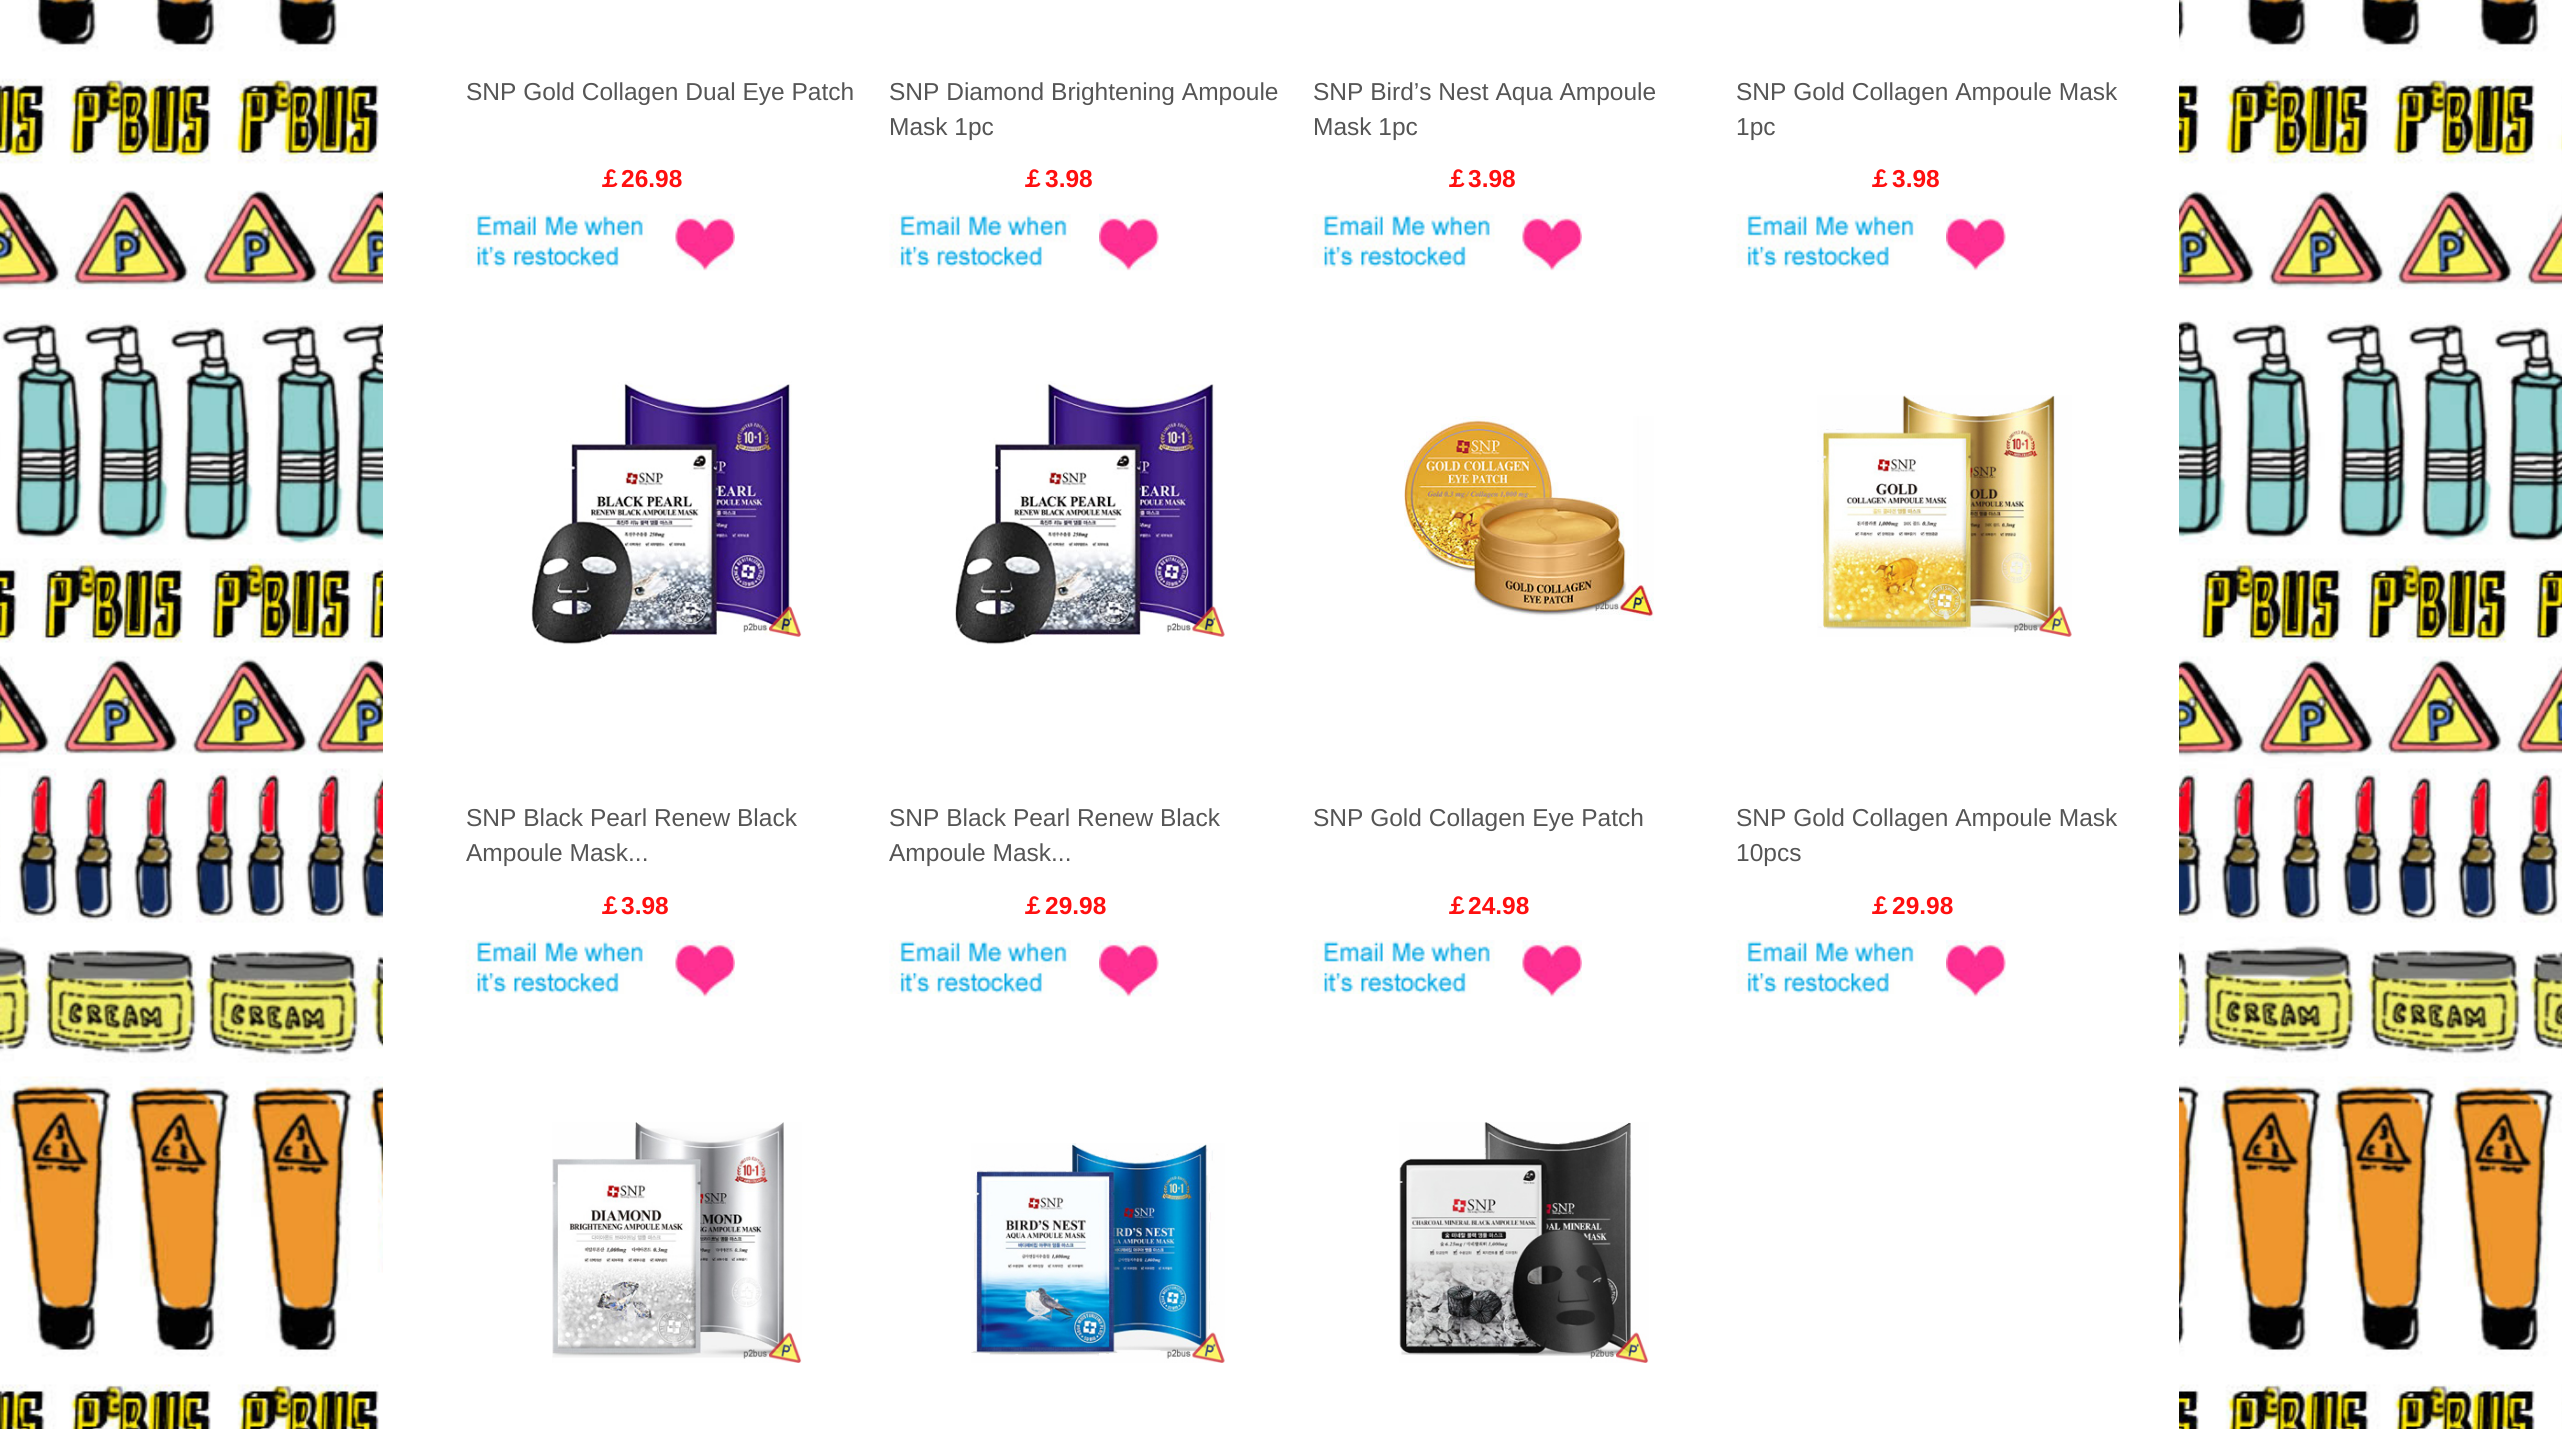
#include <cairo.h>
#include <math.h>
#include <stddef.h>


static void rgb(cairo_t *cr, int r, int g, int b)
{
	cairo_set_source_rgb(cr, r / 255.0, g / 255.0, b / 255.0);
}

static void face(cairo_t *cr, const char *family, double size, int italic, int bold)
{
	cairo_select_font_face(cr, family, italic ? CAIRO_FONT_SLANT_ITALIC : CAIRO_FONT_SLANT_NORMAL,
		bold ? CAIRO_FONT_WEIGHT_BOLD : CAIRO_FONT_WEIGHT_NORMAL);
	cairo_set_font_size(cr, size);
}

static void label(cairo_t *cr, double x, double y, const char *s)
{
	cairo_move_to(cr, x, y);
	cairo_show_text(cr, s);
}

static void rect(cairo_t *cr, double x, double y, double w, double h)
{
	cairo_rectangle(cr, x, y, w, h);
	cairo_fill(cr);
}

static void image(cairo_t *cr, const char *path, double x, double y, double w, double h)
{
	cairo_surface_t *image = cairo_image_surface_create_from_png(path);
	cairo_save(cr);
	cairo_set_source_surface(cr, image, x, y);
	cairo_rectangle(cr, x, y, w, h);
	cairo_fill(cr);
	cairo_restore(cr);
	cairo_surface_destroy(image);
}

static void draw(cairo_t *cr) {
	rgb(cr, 255, 255, 255);
	cairo_paint(cr);
	image(cr, "image0.png", 0, 0, 2562, 1429);
	rgb(cr, 255, 255, 255);
	rect(cr, 383, 0, 1796, 1429);
	face(cr, "Liberation Sans", 24.5, 0, 0);
	rgb(cr, 85, 85, 85);
	label(cr, 466, 100, "SNP Gold Collagen Dual Eye Patch");
	face(cr, "WenQuanYi Zen Hei", 24.5, 0, 1);
	rgb(cr, 255, 16, 16);
	label(cr, 597, 187, "￡");
	face(cr, "Liberation Sans", 24.5, 0, 1);
	label(cr, 621, 187, "26.98");
	image(cr, "image1.png", 465, 214, 183, 54);
	image(cr, "image2.png", 675, 213, 60, 58);
	face(cr, "Liberation Sans", 24.5, 0, 0);
	rgb(cr, 85, 85, 85);
	label(cr, 889, 100, "SNP Diamond Brightening Ampoule");
	label(cr, 889, 135, "Mask 1pc");
	face(cr, "WenQuanYi Zen Hei", 24.5, 0, 1);
	rgb(cr, 255, 16, 16);
	label(cr, 1020, 187, "￡");
	face(cr, "Liberation Sans", 24.5, 0, 1);
	label(cr, 1045, 187, "3.98");
	image(cr, "image3.png", 889, 214, 182, 54);
	image(cr, "image4.png", 1099, 213, 60, 58);
	face(cr, "Liberation Sans", 24.5, 0, 0);
	rgb(cr, 85, 85, 85);
	label(cr, 1313, 100, "SNP Bird’s Nest Aqua Ampoule");
	label(cr, 1313, 135, "Mask 1pc");
	face(cr, "WenQuanYi Zen Hei", 24.5, 0, 1);
	rgb(cr, 255, 16, 16);
	label(cr, 1444, 187, "￡");
	face(cr, "Liberation Sans", 24.5, 0, 1);
	label(cr, 1468, 187, "3.98");
	image(cr, "image5.png", 1312, 214, 183, 54);
	image(cr, "image2.png", 1522, 213, 60, 58);
	face(cr, "Liberation Sans", 24.5, 0, 0);
	rgb(cr, 85, 85, 85);
	label(cr, 1736, 100, "SNP Gold Collagen Ampoule Mask");
	label(cr, 1736, 135, "1pc");
	face(cr, "WenQuanYi Zen Hei", 24.5, 0, 1);
	rgb(cr, 255, 16, 16);
	label(cr, 1867, 187, "￡");
	face(cr, "Liberation Sans", 24.5, 0, 1);
	label(cr, 1892, 187, "3.98");
	image(cr, "image3.png", 1736, 214, 182, 54);
	image(cr, "image4.png", 1946, 213, 60, 58);
	image(cr, "image6.png", 531, 381, 271, 264);
	face(cr, "Liberation Sans", 24.5, 0, 0);
	rgb(cr, 85, 85, 85);
	label(cr, 466, 826, "SNP Black Pearl Renew Black");
	label(cr, 466, 861, "Ampoule Mask...");
	face(cr, "WenQuanYi Zen Hei", 24.5, 0, 1);
	rgb(cr, 255, 16, 16);
	label(cr, 597, 914, "￡");
	face(cr, "Liberation Sans", 24.5, 0, 1);
	label(cr, 621, 914, "3.98");
	image(cr, "image7.png", 465, 940, 183, 54);
	image(cr, "image8.png", 675, 940, 60, 57);
	image(cr, "image9.png", 955, 381, 270, 264);
	face(cr, "Liberation Sans", 24.5, 0, 0);
	rgb(cr, 85, 85, 85);
	label(cr, 889, 826, "SNP Black Pearl Renew Black");
	label(cr, 889, 861, "Ampoule Mask...");
	face(cr, "WenQuanYi Zen Hei", 24.5, 0, 1);
	rgb(cr, 255, 16, 16);
	label(cr, 1020, 914, "￡");
	face(cr, "Liberation Sans", 24.5, 0, 1);
	label(cr, 1045, 914, "29.98");
	image(cr, "image10.png", 889, 940, 182, 54);
	image(cr, "image11.png", 1099, 940, 60, 57);
	image(cr, "image12.png", 1404, 416, 250, 205);
	face(cr, "Liberation Sans", 24.5, 0, 0);
	rgb(cr, 85, 85, 85);
	label(cr, 1313, 826, "SNP Gold Collagen Eye Patch");
	face(cr, "WenQuanYi Zen Hei", 24.5, 0, 1);
	rgb(cr, 255, 16, 16);
	label(cr, 1444, 914, "￡");
	face(cr, "Liberation Sans", 24.5, 0, 1);
	label(cr, 1468, 914, "24.98");
	image(cr, "image13.png", 1312, 940, 183, 54);
	image(cr, "image8.png", 1522, 940, 60, 57);
	image(cr, "image14.png", 1817, 395, 255, 242);
	face(cr, "Liberation Sans", 24.5, 0, 0);
	rgb(cr, 85, 85, 85);
	label(cr, 1736, 826, "SNP Gold Collagen Ampoule Mask");
	label(cr, 1736, 861, "10pcs");
	face(cr, "WenQuanYi Zen Hei", 24.5, 0, 1);
	rgb(cr, 255, 16, 16);
	label(cr, 1867, 914, "￡");
	face(cr, "Liberation Sans", 24.5, 0, 1);
	label(cr, 1892, 914, "29.98");
	image(cr, "image10.png", 1736, 940, 182, 54);
	image(cr, "image11.png", 1946, 940, 60, 57);
	image(cr, "image15.png", 552, 1122, 250, 241);
	image(cr, "image16.png", 971, 1143, 254, 220);
	image(cr, "image17.png", 1399, 1122, 250, 241);
}

int main(void) {
	cairo_surface_t *surface = cairo_image_surface_create(CAIRO_FORMAT_RGB24, 2562, 1429);
	cairo_t *cr = cairo_create(surface);
	cairo_font_options_t *options = cairo_font_options_create();
	cairo_font_options_set_hint_metrics(options, CAIRO_HINT_METRICS_OFF);
	cairo_font_options_set_hint_style(options, CAIRO_HINT_STYLE_NONE);
	cairo_set_font_options(cr, options);
	cairo_set_miter_limit(cr, 4);
	draw(cr);
	cairo_surface_write_to_png(surface, "render.png");
	cairo_font_options_destroy(options);
	cairo_destroy(cr);
	cairo_surface_destroy(surface);
	return 0;
}
